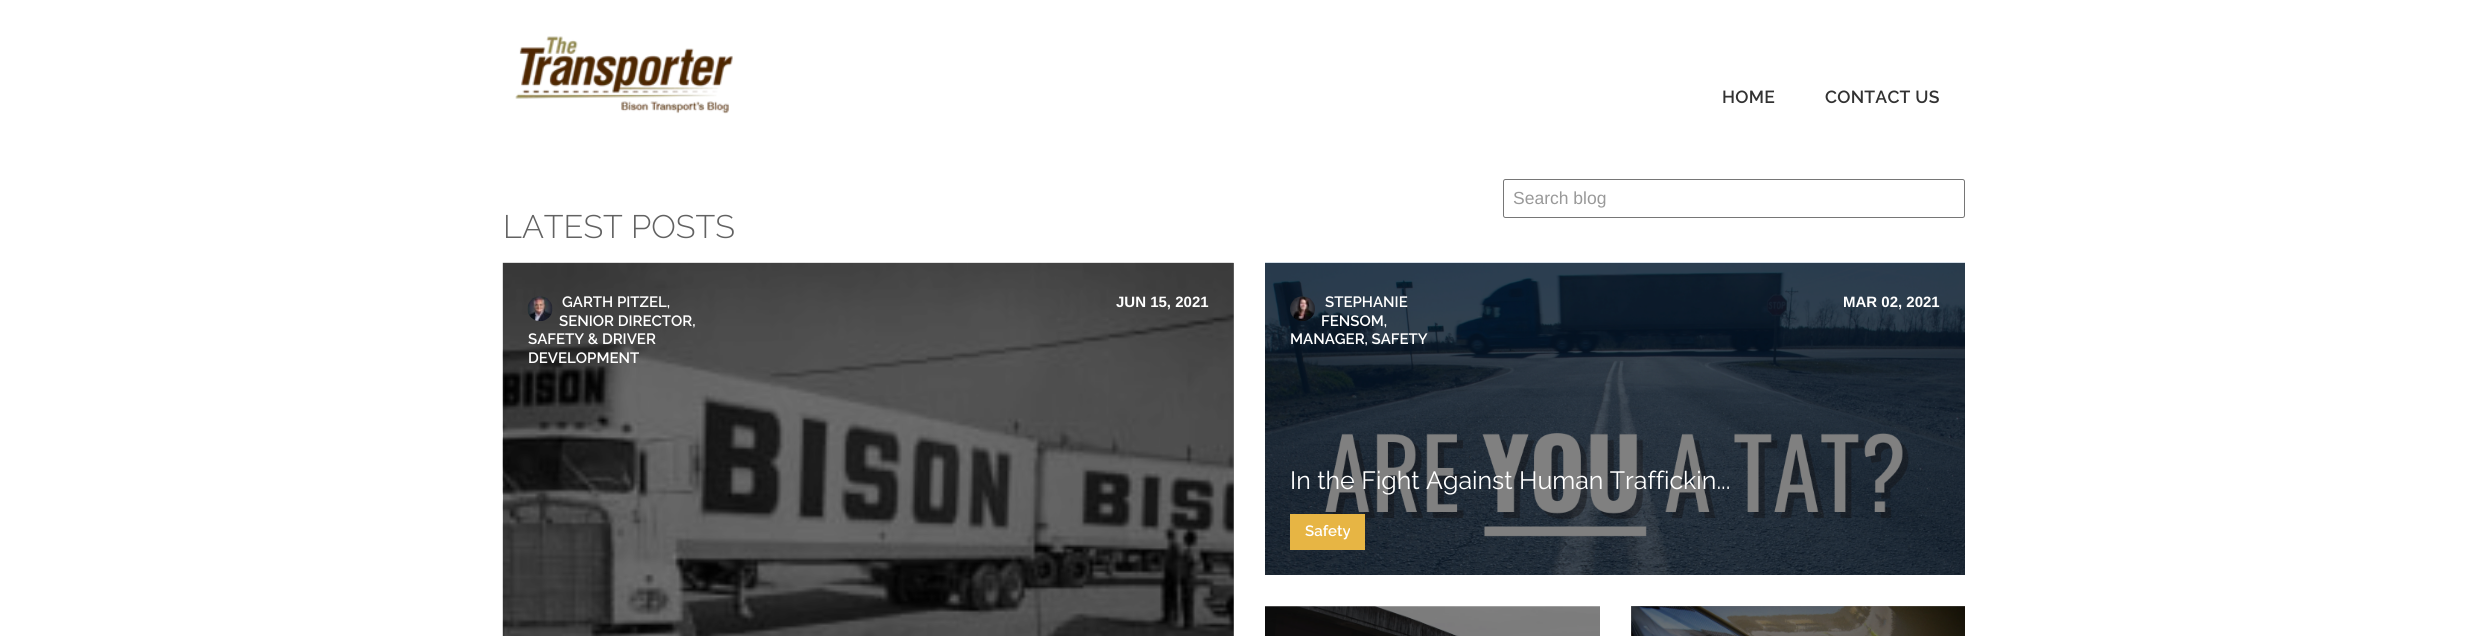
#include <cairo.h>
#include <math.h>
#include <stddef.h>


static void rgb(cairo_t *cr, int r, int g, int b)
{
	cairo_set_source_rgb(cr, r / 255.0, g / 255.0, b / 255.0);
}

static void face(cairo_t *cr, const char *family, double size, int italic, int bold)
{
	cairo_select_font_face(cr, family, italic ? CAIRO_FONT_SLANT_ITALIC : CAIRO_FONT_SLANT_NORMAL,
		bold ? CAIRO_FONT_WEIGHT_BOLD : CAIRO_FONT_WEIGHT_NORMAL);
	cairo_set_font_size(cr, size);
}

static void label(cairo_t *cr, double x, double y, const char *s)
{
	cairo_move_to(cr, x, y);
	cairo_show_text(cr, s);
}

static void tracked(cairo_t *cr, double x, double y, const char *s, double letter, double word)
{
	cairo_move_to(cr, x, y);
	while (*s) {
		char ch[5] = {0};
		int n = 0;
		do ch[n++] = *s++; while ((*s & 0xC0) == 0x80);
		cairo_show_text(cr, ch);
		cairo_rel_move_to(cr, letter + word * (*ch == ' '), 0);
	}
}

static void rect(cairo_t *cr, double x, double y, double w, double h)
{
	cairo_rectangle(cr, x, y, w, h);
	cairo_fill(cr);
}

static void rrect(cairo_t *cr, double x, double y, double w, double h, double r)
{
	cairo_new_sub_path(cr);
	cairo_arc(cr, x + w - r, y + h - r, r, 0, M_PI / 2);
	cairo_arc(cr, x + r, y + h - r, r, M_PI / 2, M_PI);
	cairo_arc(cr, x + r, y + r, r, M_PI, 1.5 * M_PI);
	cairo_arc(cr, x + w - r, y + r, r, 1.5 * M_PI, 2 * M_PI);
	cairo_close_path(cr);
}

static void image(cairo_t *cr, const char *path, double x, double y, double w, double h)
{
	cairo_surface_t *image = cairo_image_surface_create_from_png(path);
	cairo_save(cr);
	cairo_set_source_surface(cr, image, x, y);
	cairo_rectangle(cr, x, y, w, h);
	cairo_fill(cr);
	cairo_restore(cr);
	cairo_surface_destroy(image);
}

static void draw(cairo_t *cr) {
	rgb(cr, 255, 255, 255);
	cairo_paint(cr);
	rgb(cr, 128, 128, 128);
	rect(cr, 1631, 606, 334, 30);
	rect(cr, 1233, 263, 1, 373);
	image(cr, "image0.png", 515, 36, 218, 78);
	face(cr, "Raleway SemiBold", 17.5, 0, 0);
	rgb(cr, 50, 50, 50);
	tracked(cr, 1722, 103, "HOME", 0.25, 0);
	tracked(cr, 1825, 103, "CONTACT US", 0.25, 0);
	rrect(cr, 1503.5, 179.5, 461, 38, 2);
	rgb(cr, 118, 118, 118);
	cairo_set_line_width(cr, 1);
	cairo_stroke(cr);
	face(cr, "Liberation Sans", 17.5, 0, 0);
	rgb(cr, 153, 153, 153);
	label(cr, 1513, 204, "Search blog");
	face(cr, "Raleway Light", 32.5, 0, 0);
	rgb(cr, 98, 98, 98);
	label(cr, 503, 238, "LATEST POSTS");
	image(cr, "image1.png", 502, 262, 732, 374);
	image(cr, "image2.png", 527, 296, 26, 25);
	face(cr, "Raleway SemiBold", 15, 0, 0);
	rgb(cr, 255, 255, 255);
	label(cr, 562, 307, "GARTH PITZEL,");
	label(cr, 559, 326, "SENIOR DIRECTOR,");
	label(cr, 528, 344, "SAFETY & DRIVER");
	label(cr, 528, 363, "DEVELOPMENT");
	face(cr, "Liberation Sans", 15, 0, 1);
	label(cr, 1116, 307, "JUN 15, 2021");
	image(cr, "image3.png", 1265, 262, 700, 313);
	image(cr, "image4.png", 1290, 296, 25, 25);
	face(cr, "Raleway SemiBold", 15, 0, 0);
	label(cr, 1325, 307, "STEPHANIE");
	label(cr, 1321, 326, "FENSOM,");
	label(cr, 1290, 344, "MANAGER, SAFETY");
	face(cr, "Liberation Sans", 15, 0, 1);
	label(cr, 1843, 307, "MAR 02, 2021");
	face(cr, "Raleway", 25, 0, 0);
	label(cr, 1290, 489, "In the Fight Against Human Traffickin...");
	rgb(cr, 231, 181, 68);
	rect(cr, 1290, 514, 75, 36);
	face(cr, "Raleway SemiBold", 15, 0, 0);
	rgb(cr, 255, 255, 255);
	label(cr, 1305, 536, "Safety");
	image(cr, "image5.png", 1265, 606, 335, 30);
	image(cr, "image6.png", 1631, 606, 334, 30);
}

int main(void) {
	cairo_surface_t *surface = cairo_image_surface_create(CAIRO_FORMAT_RGB24, 2467, 636);
	cairo_t *cr = cairo_create(surface);
	cairo_font_options_t *options = cairo_font_options_create();
	cairo_font_options_set_hint_metrics(options, CAIRO_HINT_METRICS_OFF);
	cairo_font_options_set_hint_style(options, CAIRO_HINT_STYLE_NONE);
	cairo_set_font_options(cr, options);
	cairo_set_miter_limit(cr, 4);
	draw(cr);
	cairo_surface_write_to_png(surface, "render.png");
	cairo_font_options_destroy(options);
	cairo_destroy(cr);
	cairo_surface_destroy(surface);
	return 0;
}
